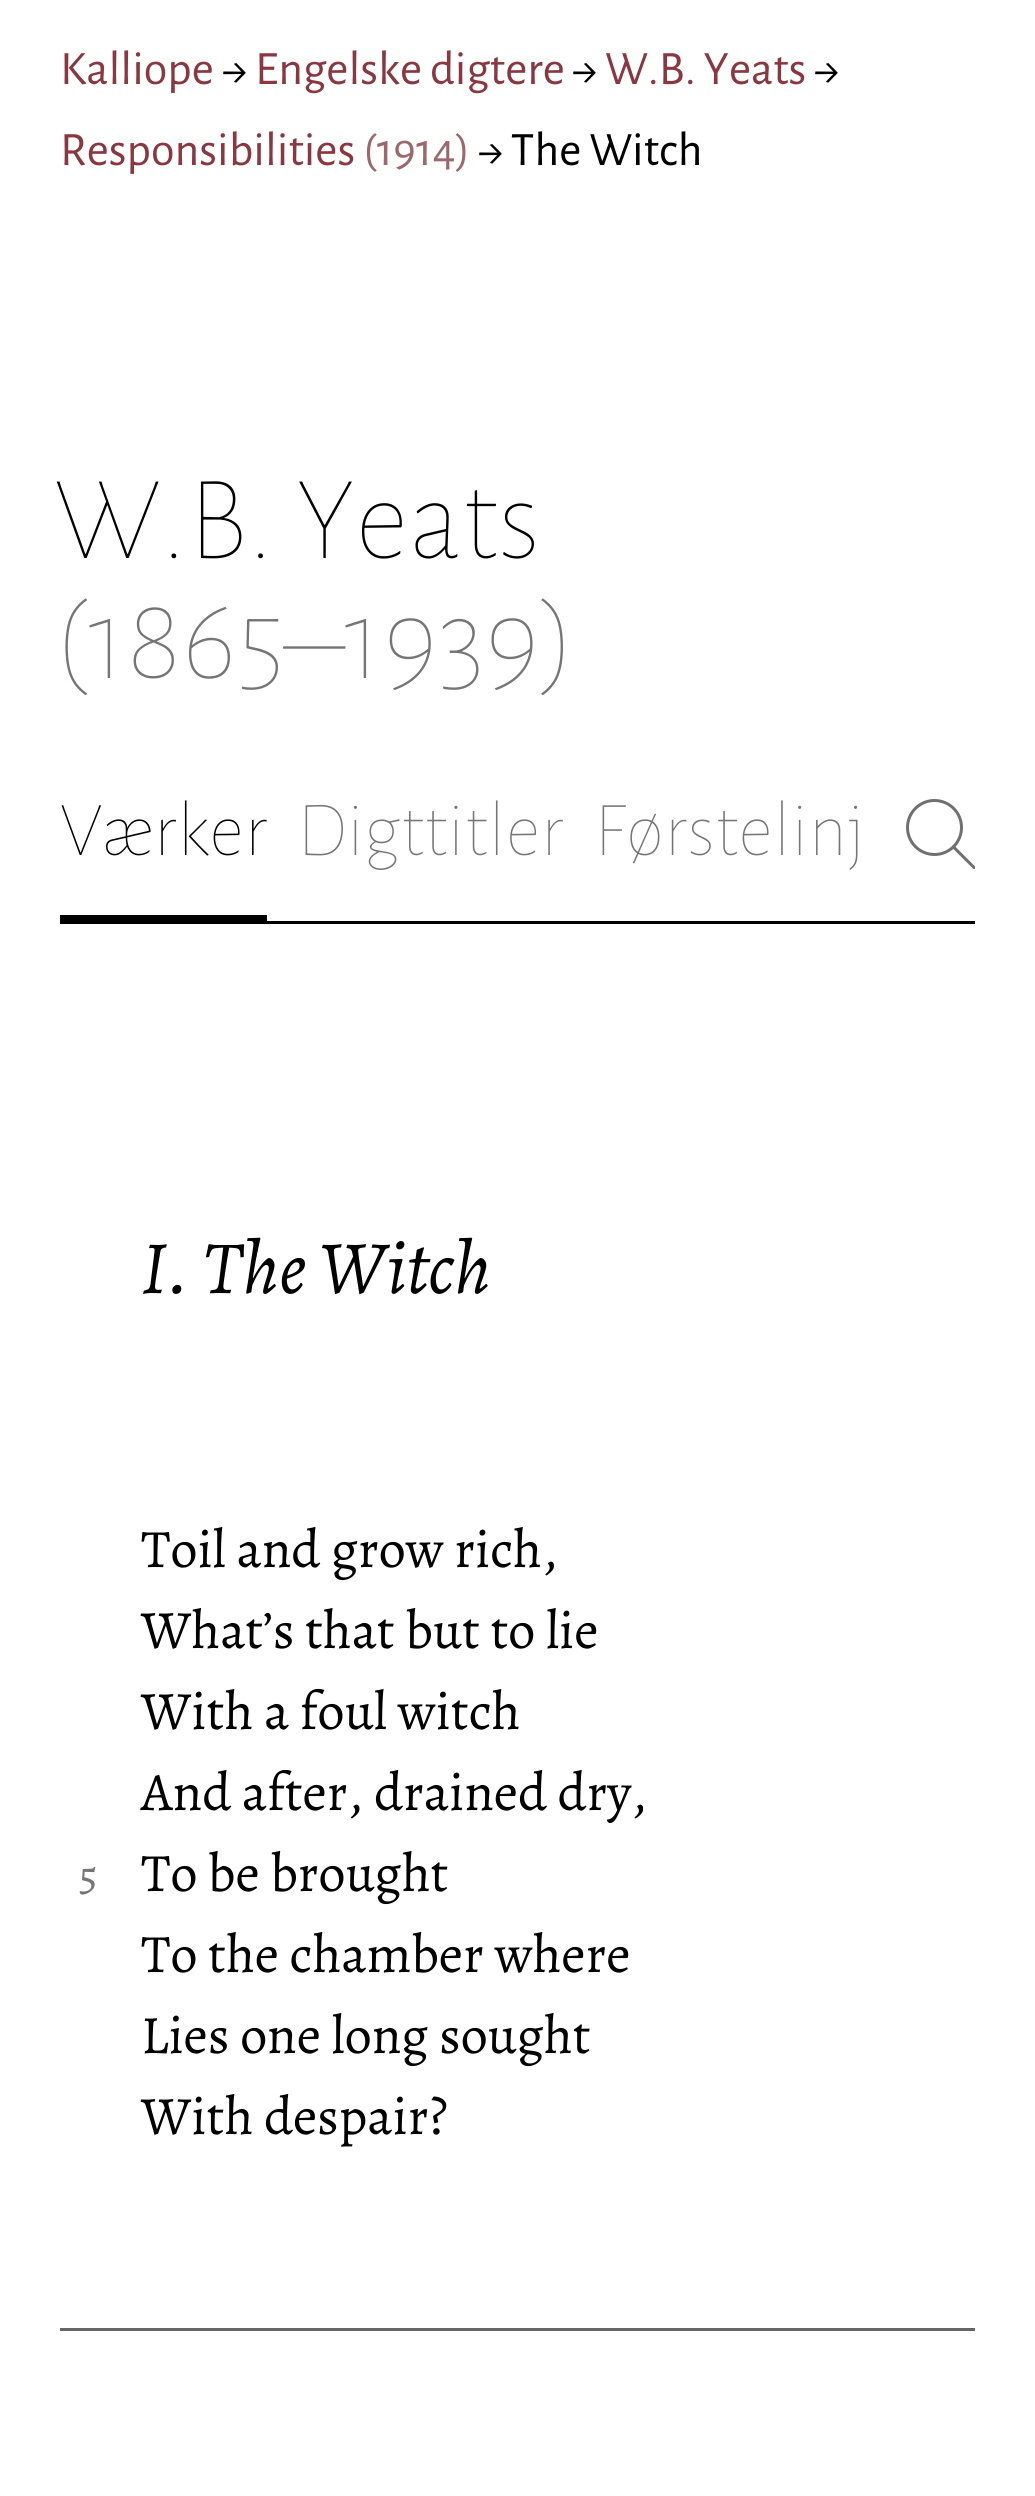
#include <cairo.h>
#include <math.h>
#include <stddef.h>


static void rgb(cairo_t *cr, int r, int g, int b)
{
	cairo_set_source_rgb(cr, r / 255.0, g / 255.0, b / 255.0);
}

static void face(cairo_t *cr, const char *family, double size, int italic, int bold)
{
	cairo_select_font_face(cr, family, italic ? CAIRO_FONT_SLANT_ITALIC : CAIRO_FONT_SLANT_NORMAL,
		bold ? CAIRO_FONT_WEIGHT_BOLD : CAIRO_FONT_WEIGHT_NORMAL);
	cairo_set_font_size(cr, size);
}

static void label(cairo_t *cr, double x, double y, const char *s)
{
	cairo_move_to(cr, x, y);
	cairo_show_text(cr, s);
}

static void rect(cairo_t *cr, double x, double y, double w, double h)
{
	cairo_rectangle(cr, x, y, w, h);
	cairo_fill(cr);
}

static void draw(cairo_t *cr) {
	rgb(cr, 255, 255, 255);
	cairo_paint(cr);
	face(cr, "Alegreya Sans", 48, 0, 0);
	rgb(cr, 139, 55, 65);
	label(cr, 60, 84, "Kalliope");
	rgb(cr, 0, 0, 0);
	label(cr, 222, 84, "→");
	rgb(cr, 139, 55, 65);
	label(cr, 255, 84, "Engelske digtere");
	rgb(cr, 0, 0, 0);
	label(cr, 572, 84, "→");
	rgb(cr, 139, 55, 65);
	label(cr, 605, 84, "W.B. Yeats");
	rgb(cr, 0, 0, 0);
	label(cr, 814, 84, "→");
	rgb(cr, 139, 55, 65);
	label(cr, 60, 165, "Responsibilities");
	rgb(cr, 156, 104, 108);
	label(cr, 363, 165, "(1914)");
	rgb(cr, 0, 0, 0);
	label(cr, 478, 165, "→ The Witch");
	face(cr, "Alegreya Sans ExtraLight", 120, 0, 0);
	label(cr, 54, 558, "W.B. Yeats");
	rgb(cr, 117, 117, 117);
	label(cr, 54, 678, "(1865–1939)");
	rgb(cr, 0, 0, 0);
	rect(cr, 60, 921, 915, 3);
	rect(cr, 60, 915, 207, 6);
	face(cr, "Alegreya Sans ExtraLight", 78, 0, 0);
	label(cr, 60, 855, "Værker");
	rgb(cr, 117, 117, 117);
	label(cr, 297, 855, "Digttitler");
	label(cr, 594, 855, "Førstelinj");
	cairo_new_path(cr);
	cairo_arc(cr, 934.5, 827.5, 27, 0, 2 * M_PI);
	rgb(cr, 112, 112, 112);
	cairo_set_line_width(cr, 3);
	cairo_stroke(cr);
	cairo_save(cr);
	cairo_rectangle(cr, 906, 792, 69, 78);
	cairo_clip(cr);
	cairo_new_path(cr);
	cairo_move_to(cr, 974, 867.5);
	cairo_line_to(cr, 953.5, 847);
	cairo_set_line_cap(cr, CAIRO_LINE_CAP_ROUND);
	cairo_set_line_join(cr, CAIRO_LINE_JOIN_ROUND);
	cairo_stroke(cr);
	cairo_restore(cr);
	face(cr, "Alegreya", 75.5, 1, 0);
	rgb(cr, 0, 0, 0);
	label(cr, 141, 1293, "I. The Witch");
	face(cr, "Alegreya", 54, 0, 0);
	label(cr, 141, 1567, "Toil and grow rich,");
	label(cr, 141, 1648, "What’s that but to lie");
	label(cr, 141, 1729, "With a foul witch");
	label(cr, 141, 1810, "And after, drained dry,");
	face(cr, "Alegreya", 43, 0, 0);
	rgb(cr, 117, 117, 117);
	label(cr, 79, 1890, "5");
	face(cr, "Alegreya", 54, 0, 0);
	rgb(cr, 0, 0, 0);
	label(cr, 141, 1891, "To be brought");
	label(cr, 141, 1972, "To the chamber where");
	label(cr, 141, 2053, "Lies one long sought");
	label(cr, 141, 2134, "With despair?");
	rgb(cr, 102, 102, 102);
	rect(cr, 60, 2328, 915, 3);
}

int main(void) {
	cairo_surface_t *surface = cairo_image_surface_create(CAIRO_FORMAT_RGB24, 1035, 2496);
	cairo_t *cr = cairo_create(surface);
	cairo_font_options_t *options = cairo_font_options_create();
	cairo_font_options_set_hint_metrics(options, CAIRO_HINT_METRICS_OFF);
	cairo_font_options_set_hint_style(options, CAIRO_HINT_STYLE_NONE);
	cairo_set_font_options(cr, options);
	cairo_set_miter_limit(cr, 4);
	draw(cr);
	cairo_surface_write_to_png(surface, "render.png");
	cairo_font_options_destroy(options);
	cairo_destroy(cr);
	cairo_surface_destroy(surface);
	return 0;
}
